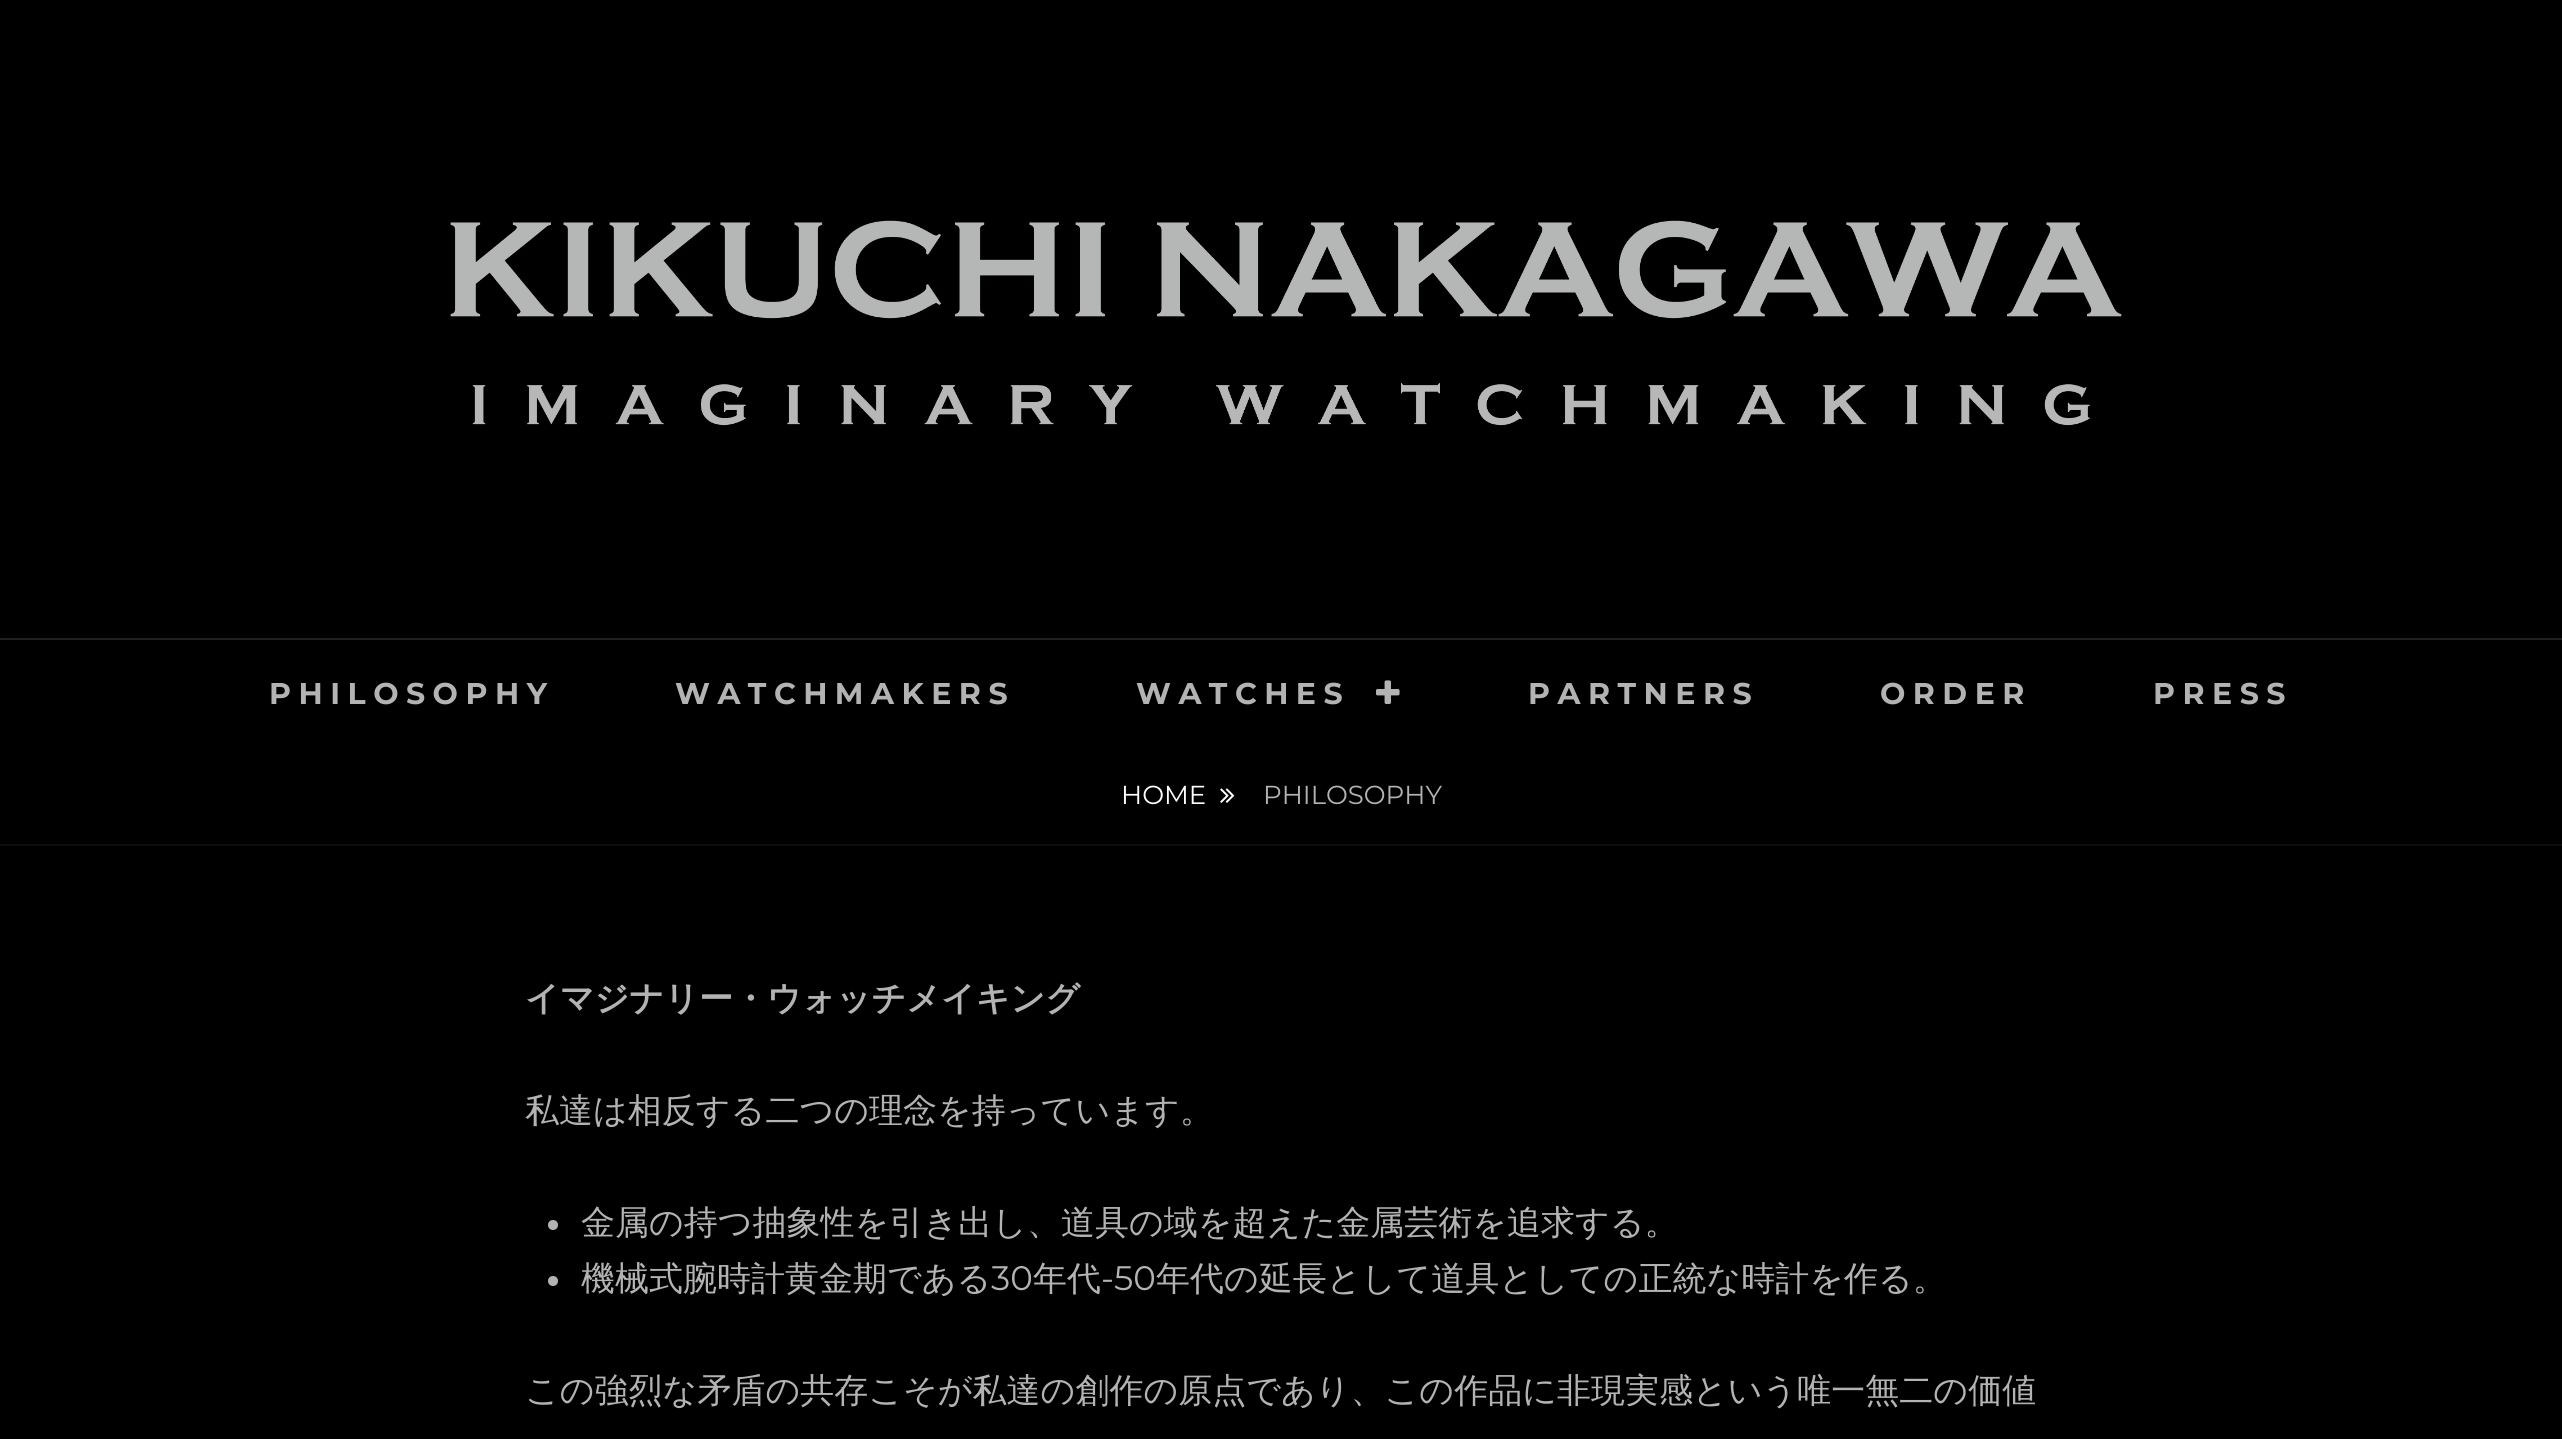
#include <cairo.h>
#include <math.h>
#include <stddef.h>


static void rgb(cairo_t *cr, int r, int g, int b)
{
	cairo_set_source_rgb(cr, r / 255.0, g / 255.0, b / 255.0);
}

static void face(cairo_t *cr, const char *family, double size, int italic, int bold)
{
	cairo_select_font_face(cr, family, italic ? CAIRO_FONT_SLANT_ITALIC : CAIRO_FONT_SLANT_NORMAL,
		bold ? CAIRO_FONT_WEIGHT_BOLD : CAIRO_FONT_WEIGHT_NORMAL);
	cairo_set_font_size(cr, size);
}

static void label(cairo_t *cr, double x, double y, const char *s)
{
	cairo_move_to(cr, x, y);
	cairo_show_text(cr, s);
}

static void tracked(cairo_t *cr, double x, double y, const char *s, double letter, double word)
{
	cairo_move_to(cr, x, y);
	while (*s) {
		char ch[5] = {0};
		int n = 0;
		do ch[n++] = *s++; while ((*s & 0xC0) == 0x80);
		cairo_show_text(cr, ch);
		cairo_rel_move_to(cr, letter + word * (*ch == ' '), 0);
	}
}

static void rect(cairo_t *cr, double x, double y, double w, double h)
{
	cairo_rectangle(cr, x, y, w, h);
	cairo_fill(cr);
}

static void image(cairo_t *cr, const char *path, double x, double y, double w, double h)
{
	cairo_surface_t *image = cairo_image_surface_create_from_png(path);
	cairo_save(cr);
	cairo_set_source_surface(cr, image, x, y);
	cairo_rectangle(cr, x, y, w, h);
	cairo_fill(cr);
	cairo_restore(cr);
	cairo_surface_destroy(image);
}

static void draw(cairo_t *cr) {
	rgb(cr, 0, 0, 0);
	cairo_paint(cr);
	image(cr, "image0.png", 450, 220, 1672, 206);
	rgb(cr, 31, 31, 31);
	rect(cr, 0, 638, 2562, 2);
	face(cr, "Montserrat", 30, 0, 1);
	rgb(cr, 179, 179, 179);
	tracked(cr, 269, 704, "PHILOSOPHY", 7.5, 0);
	tracked(cr, 675, 704, "WATCHMAKERS", 7.5, 0);
	tracked(cr, 1136, 704, "WATCHES", 7.5, 0);
	image(cr, "image1.png", 1376, 680, 24, 24);
	tracked(cr, 1528, 704, "PARTNERS", 7.5, 0);
	tracked(cr, 1880, 704, "ORDER", 7.5, 0);
	tracked(cr, 2153, 704, "PRESS", 7.5, 0);
	rgb(cr, 13, 13, 13);
	rect(cr, 0, 844, 2562, 2);
	face(cr, "Montserrat", 26, 0, 0);
	rgb(cr, 255, 255, 255);
	label(cr, 1121, 804, "HOME");
	image(cr, "image2.png", 1220, 788, 15, 15);
	rgb(cr, 179, 179, 179);
	label(cr, 1263, 804, "PHILOSOPHY");
	face(cr, "WenQuanYi Zen Hei", 34, 0, 1);
	label(cr, 525, 1010, "イマジナリー・ウォッチメイキング");
	face(cr, "WenQuanYi Zen Hei Medium", 34, 0, 0);
	label(cr, 525, 1122, "私達は相反する二つの理念を持っています。");
	cairo_new_path(cr);
	cairo_arc(cr, 553, 1225, 5, 0, 2 * M_PI);
	cairo_fill(cr);
	label(cr, 581, 1234, "金属の持つ抽象性を引き出し、道具の域を超えた金属芸術を追求する。");
	cairo_new_path(cr);
	cairo_arc(cr, 553, 1281, 5, 0, 2 * M_PI);
	cairo_fill(cr);
	label(cr, 581, 1290, "機械式腕時計黄金期である");
	face(cr, "Montserrat", 34, 0, 0);
	label(cr, 991, 1290, "30");
	face(cr, "WenQuanYi Zen Hei Medium", 34, 0, 0);
	label(cr, 1033, 1290, "年代");
	face(cr, "Montserrat", 34, 0, 0);
	label(cr, 1101, 1290, "-50");
	face(cr, "WenQuanYi Zen Hei Medium", 34, 0, 0);
	label(cr, 1156, 1290, "年代の延長として道具としての正統な時計を作る。");
	label(cr, 525, 1402, "この強烈な矛盾の共存こそが私達の創作の原点であり、この作品に非現実感という唯一無二の価値");
}

int main(void) {
	cairo_surface_t *surface = cairo_image_surface_create(CAIRO_FORMAT_RGB24, 2562, 1439);
	cairo_t *cr = cairo_create(surface);
	cairo_font_options_t *options = cairo_font_options_create();
	cairo_font_options_set_hint_metrics(options, CAIRO_HINT_METRICS_OFF);
	cairo_font_options_set_hint_style(options, CAIRO_HINT_STYLE_NONE);
	cairo_set_font_options(cr, options);
	cairo_set_miter_limit(cr, 4);
	draw(cr);
	cairo_surface_write_to_png(surface, "render.png");
	cairo_font_options_destroy(options);
	cairo_destroy(cr);
	cairo_surface_destroy(surface);
	return 0;
}
